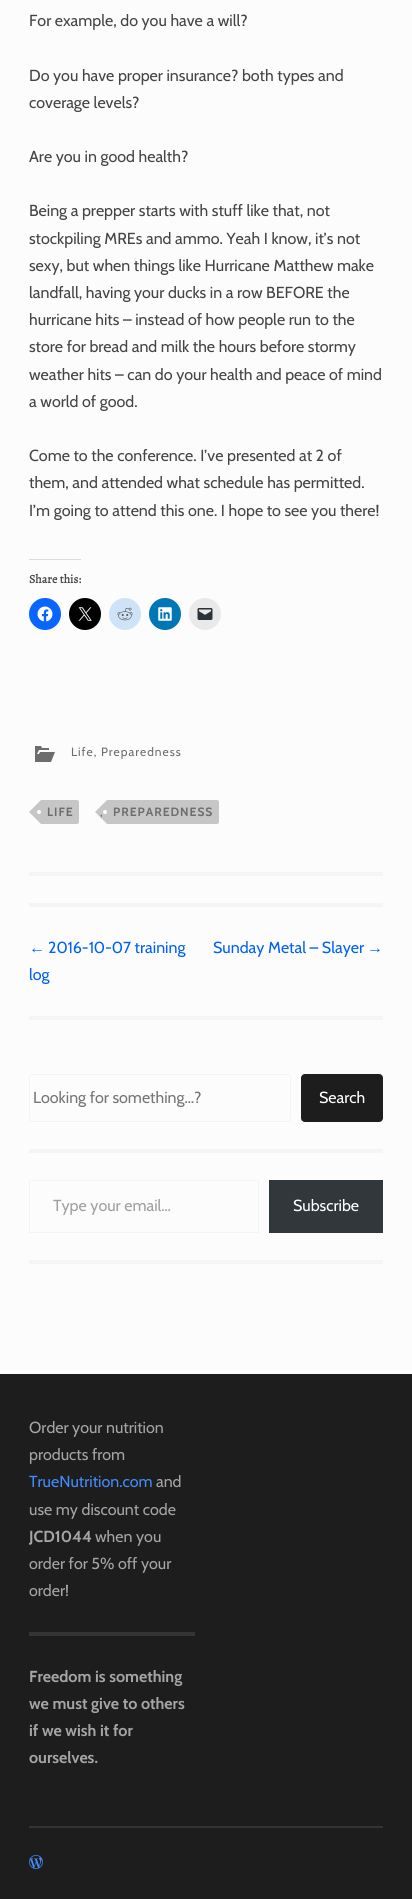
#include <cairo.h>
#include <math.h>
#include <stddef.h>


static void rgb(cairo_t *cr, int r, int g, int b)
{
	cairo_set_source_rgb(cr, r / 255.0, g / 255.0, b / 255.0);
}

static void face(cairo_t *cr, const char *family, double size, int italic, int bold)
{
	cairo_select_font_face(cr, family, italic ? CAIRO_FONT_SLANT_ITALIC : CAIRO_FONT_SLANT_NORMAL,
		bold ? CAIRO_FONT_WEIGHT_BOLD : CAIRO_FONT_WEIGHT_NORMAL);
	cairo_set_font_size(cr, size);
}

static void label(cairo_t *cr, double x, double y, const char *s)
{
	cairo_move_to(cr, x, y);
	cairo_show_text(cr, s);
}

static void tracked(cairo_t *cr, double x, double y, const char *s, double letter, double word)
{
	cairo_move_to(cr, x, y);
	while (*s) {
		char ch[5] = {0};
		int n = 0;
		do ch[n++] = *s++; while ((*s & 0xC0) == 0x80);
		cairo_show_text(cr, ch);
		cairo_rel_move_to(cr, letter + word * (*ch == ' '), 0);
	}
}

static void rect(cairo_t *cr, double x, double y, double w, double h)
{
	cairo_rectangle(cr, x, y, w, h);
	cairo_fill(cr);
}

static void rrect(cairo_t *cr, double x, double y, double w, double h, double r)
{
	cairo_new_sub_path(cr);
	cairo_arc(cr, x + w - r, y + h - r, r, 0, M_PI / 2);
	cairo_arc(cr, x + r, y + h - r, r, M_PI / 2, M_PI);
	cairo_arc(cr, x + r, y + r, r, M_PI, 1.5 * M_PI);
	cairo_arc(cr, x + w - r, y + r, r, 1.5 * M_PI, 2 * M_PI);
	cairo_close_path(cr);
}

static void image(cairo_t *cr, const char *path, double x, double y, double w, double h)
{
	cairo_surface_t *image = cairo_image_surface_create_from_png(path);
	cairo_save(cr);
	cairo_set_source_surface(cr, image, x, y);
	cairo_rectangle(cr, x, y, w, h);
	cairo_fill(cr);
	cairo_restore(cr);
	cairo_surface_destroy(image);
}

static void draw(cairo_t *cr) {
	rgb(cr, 252, 252, 252);
	cairo_paint(cr);
	rgb(cr, 245, 245, 245);
	rect(cr, 29, 872, 354, 4);
	face(cr, "Cabin", 16, 0, 0);
	rgb(cr, 68, 68, 68);
	label(cr, 29, 26, "For example, do you have a will?");
	label(cr, 29, 81, "Do you have proper insurance? both types and");
	label(cr, 29, 108, "coverage levels?");
	label(cr, 29, 162, "Are you in good health?");
	label(cr, 29, 216, "Being a prepper starts with stuff like that, not");
	label(cr, 29, 244, "stockpiling MREs and ammo. Yeah I know, it’s not");
	label(cr, 29, 271, "sexy, but when things like Hurricane Matthew make");
	label(cr, 29, 298, "landfall, having your ducks in a row BEFORE the");
	label(cr, 29, 325, "hurricane hits – instead of how people run to the");
	label(cr, 29, 352, "store for bread and milk the hours before stormy");
	label(cr, 29, 380, "weather hits – can do your health and peace of mind");
	label(cr, 29, 407, "a world of good.");
	label(cr, 29, 461, "Come to the conference. I’ve presented at 2 of");
	label(cr, 29, 488, "them, and attended what schedule has permitted.");
	label(cr, 29, 516, "I’m going to attend this one. I hope to see you there!");
	rgb(cr, 220, 220, 222);
	rect(cr, 29, 559, 52, 1);
	face(cr, "Alegreya", 12, 0, 1);
	rgb(cr, 68, 68, 68);
	label(cr, 29, 583, "Share this:");
	rgb(cr, 8, 102, 255);
	cairo_new_path(cr);
	cairo_arc(cr, 45, 614, 16, 0, 2 * M_PI);
	cairo_fill(cr);
	image(cr, "image0.png", 37, 606, 16, 16);
	rgb(cr, 0, 0, 0);
	cairo_arc(cr, 85, 614, 16, 0, 2 * M_PI);
	cairo_fill(cr);
	image(cr, "image1.png", 78, 607, 14, 14);
	rgb(cr, 206, 227, 248);
	cairo_arc(cr, 125, 614, 16, 0, 2 * M_PI);
	cairo_fill(cr);
	image(cr, "image2.png", 117, 607, 16, 14);
	rgb(cr, 0, 119, 181);
	cairo_arc(cr, 165, 614, 16, 0, 2 * M_PI);
	cairo_fill(cr);
	image(cr, "image3.png", 158, 607, 14, 14);
	rgb(cr, 233, 233, 233);
	cairo_arc(cr, 205, 614, 16, 0, 2 * M_PI);
	cairo_fill(cr);
	image(cr, "image4.png", 197, 608, 16, 12);
	image(cr, "image5.png", 35, 746, 20, 16);
	face(cr, "Cabin", 12, 0, 0);
	rgb(cr, 109, 109, 109);
	tracked(cr, 71, 756, "Life, Preparedness", 1, 0);
	rgb(cr, 198, 198, 198);
	cairo_new_path(cr);
	cairo_move_to(cr, 41, 800);
	cairo_line_to(cr, 77, 800);
	cairo_curve_to(cr, 78, 800, 79, 801, 79, 802);
	cairo_line_to(cr, 79, 822);
	cairo_curve_to(cr, 79, 823, 78, 824, 77, 824);
	cairo_line_to(cr, 41, 824);
	cairo_close_path(cr);
	cairo_fill(cr);
	cairo_new_path(cr);
	cairo_move_to(cr, 41, 800);
	cairo_line_to(cr, 41, 824);
	cairo_line_to(cr, 29, 812);
	cairo_close_path(cr);
	cairo_fill(cr);
	face(cr, "Cabin", 12, 0, 1);
	rgb(cr, 109, 109, 109);
	tracked(cr, 47, 816, "LIFE", 1, 0);
	rgb(cr, 252, 252, 252);
	cairo_new_path(cr);
	cairo_arc(cr, 39, 812, 2, 0, 2 * M_PI);
	cairo_fill(cr);
	face(cr, "Cabin", 12, 0, 0);
	rgb(cr, 109, 109, 109);
	tracked(cr, 100, 816, ",", 1, 0);
	rgb(cr, 198, 198, 198);
	cairo_new_path(cr);
	cairo_move_to(cr, 107, 800);
	cairo_line_to(cr, 217, 800);
	cairo_curve_to(cr, 218, 800, 219, 801, 219, 802);
	cairo_line_to(cr, 219, 822);
	cairo_curve_to(cr, 219, 823, 218, 824, 217, 824);
	cairo_line_to(cr, 107, 824);
	cairo_close_path(cr);
	cairo_fill(cr);
	cairo_set_source_rgba(cr, 0.463, 0.463, 0.463, 0.4);
	cairo_new_path(cr);
	cairo_move_to(cr, 107, 800);
	cairo_line_to(cr, 107, 824);
	cairo_line_to(cr, 95, 812);
	cairo_close_path(cr);
	cairo_fill(cr);
	face(cr, "Cabin", 12, 0, 1);
	rgb(cr, 109, 109, 109);
	tracked(cr, 113, 816, "PREPAREDNESS", 1, 0);
	rgb(cr, 252, 252, 252);
	cairo_new_path(cr);
	cairo_arc(cr, 105, 812, 2, 0, 2 * M_PI);
	cairo_fill(cr);
	rgb(cr, 245, 245, 245);
	rect(cr, 29, 903, 354, 4);
	rect(cr, 29, 1016, 354, 4);
	face(cr, "Liberation Sans", 16, 0, 0);
	rgb(cr, 0, 97, 244);
	label(cr, 29, 953, "←");
	face(cr, "Cabin", 16, 0, 0);
	label(cr, 48, 953, "2016-10-07 training");
	label(cr, 29, 980, "log");
	label(cr, 213, 953, "Sunday Metal – Slayer");
	face(cr, "Liberation Sans", 16, 0, 0);
	label(cr, 367, 953, "→");
	rgb(cr, 245, 245, 245);
	rect(cr, 29, 1149, 354, 4);
	rrect(cr, 29.5, 1074.5, 261, 47, 2.5);
	rgb(cr, 244, 244, 244);
	cairo_set_line_width(cr, 1);
	cairo_stroke(cr);
	face(cr, "Cabin", 16, 0, 0);
	rgb(cr, 117, 117, 117);
	label(cr, 33, 1103, "Looking for something…?");
	rgb(cr, 29, 29, 29);
	rrect(cr, 301, 1074, 82, 48, 4);
	cairo_fill(cr);
	rgb(cr, 255, 255, 255);
	label(cr, 319, 1103, "Search");
	rgb(cr, 245, 245, 245);
	rect(cr, 29, 1260, 354, 4);
	cairo_rectangle(cr, 29.5, 1180.5, 229, 52);
	rgb(cr, 244, 244, 244);
	cairo_stroke(cr);
	rgb(cr, 159, 159, 159);
	label(cr, 53, 1211, "Type your email…");
	rgb(cr, 50, 55, 60);
	rect(cr, 269, 1180, 114, 53);
	rgb(cr, 255, 255, 255);
	label(cr, 293, 1211, "Subscribe");
	rgb(cr, 29, 29, 29);
	rect(cr, 0, 1374, 412, 525);
	rgb(cr, 52, 52, 52);
	rect(cr, 29, 1632, 166, 4);
	rgb(cr, 165, 165, 165);
	label(cr, 29, 1433, "Order your nutrition");
	label(cr, 29, 1460, "products from");
	rgb(cr, 65, 139, 251);
	label(cr, 29, 1487, "TrueNutrition.com");
	rgb(cr, 165, 165, 165);
	label(cr, 156, 1487, "and");
	label(cr, 29, 1515, "use my discount code");
	face(cr, "Cabin", 16, 0, 1);
	label(cr, 29, 1542, "JCD1044");
	face(cr, "Cabin", 16, 0, 0);
	label(cr, 95, 1542, "when you");
	label(cr, 29, 1569, "order for 5% off your");
	label(cr, 29, 1596, "order!");
	face(cr, "Cabin", 16, 0, 1);
	label(cr, 29, 1682, "Freedom is something");
	label(cr, 29, 1709, "we must give to others");
	label(cr, 29, 1736, "if we wish it for");
	label(cr, 29, 1763, "ourselves.");
	rgb(cr, 52, 52, 52);
	rect(cr, 29, 1826, 354, 2);
	image(cr, "image6.png", 29, 1855, 14, 14);
}

int main(void) {
	cairo_surface_t *surface = cairo_image_surface_create(CAIRO_FORMAT_RGB24, 412, 1899);
	cairo_t *cr = cairo_create(surface);
	cairo_font_options_t *options = cairo_font_options_create();
	cairo_font_options_set_hint_metrics(options, CAIRO_HINT_METRICS_OFF);
	cairo_font_options_set_hint_style(options, CAIRO_HINT_STYLE_NONE);
	cairo_set_font_options(cr, options);
	cairo_set_miter_limit(cr, 4);
	draw(cr);
	cairo_surface_write_to_png(surface, "render.png");
	cairo_font_options_destroy(options);
	cairo_destroy(cr);
	cairo_surface_destroy(surface);
	return 0;
}
